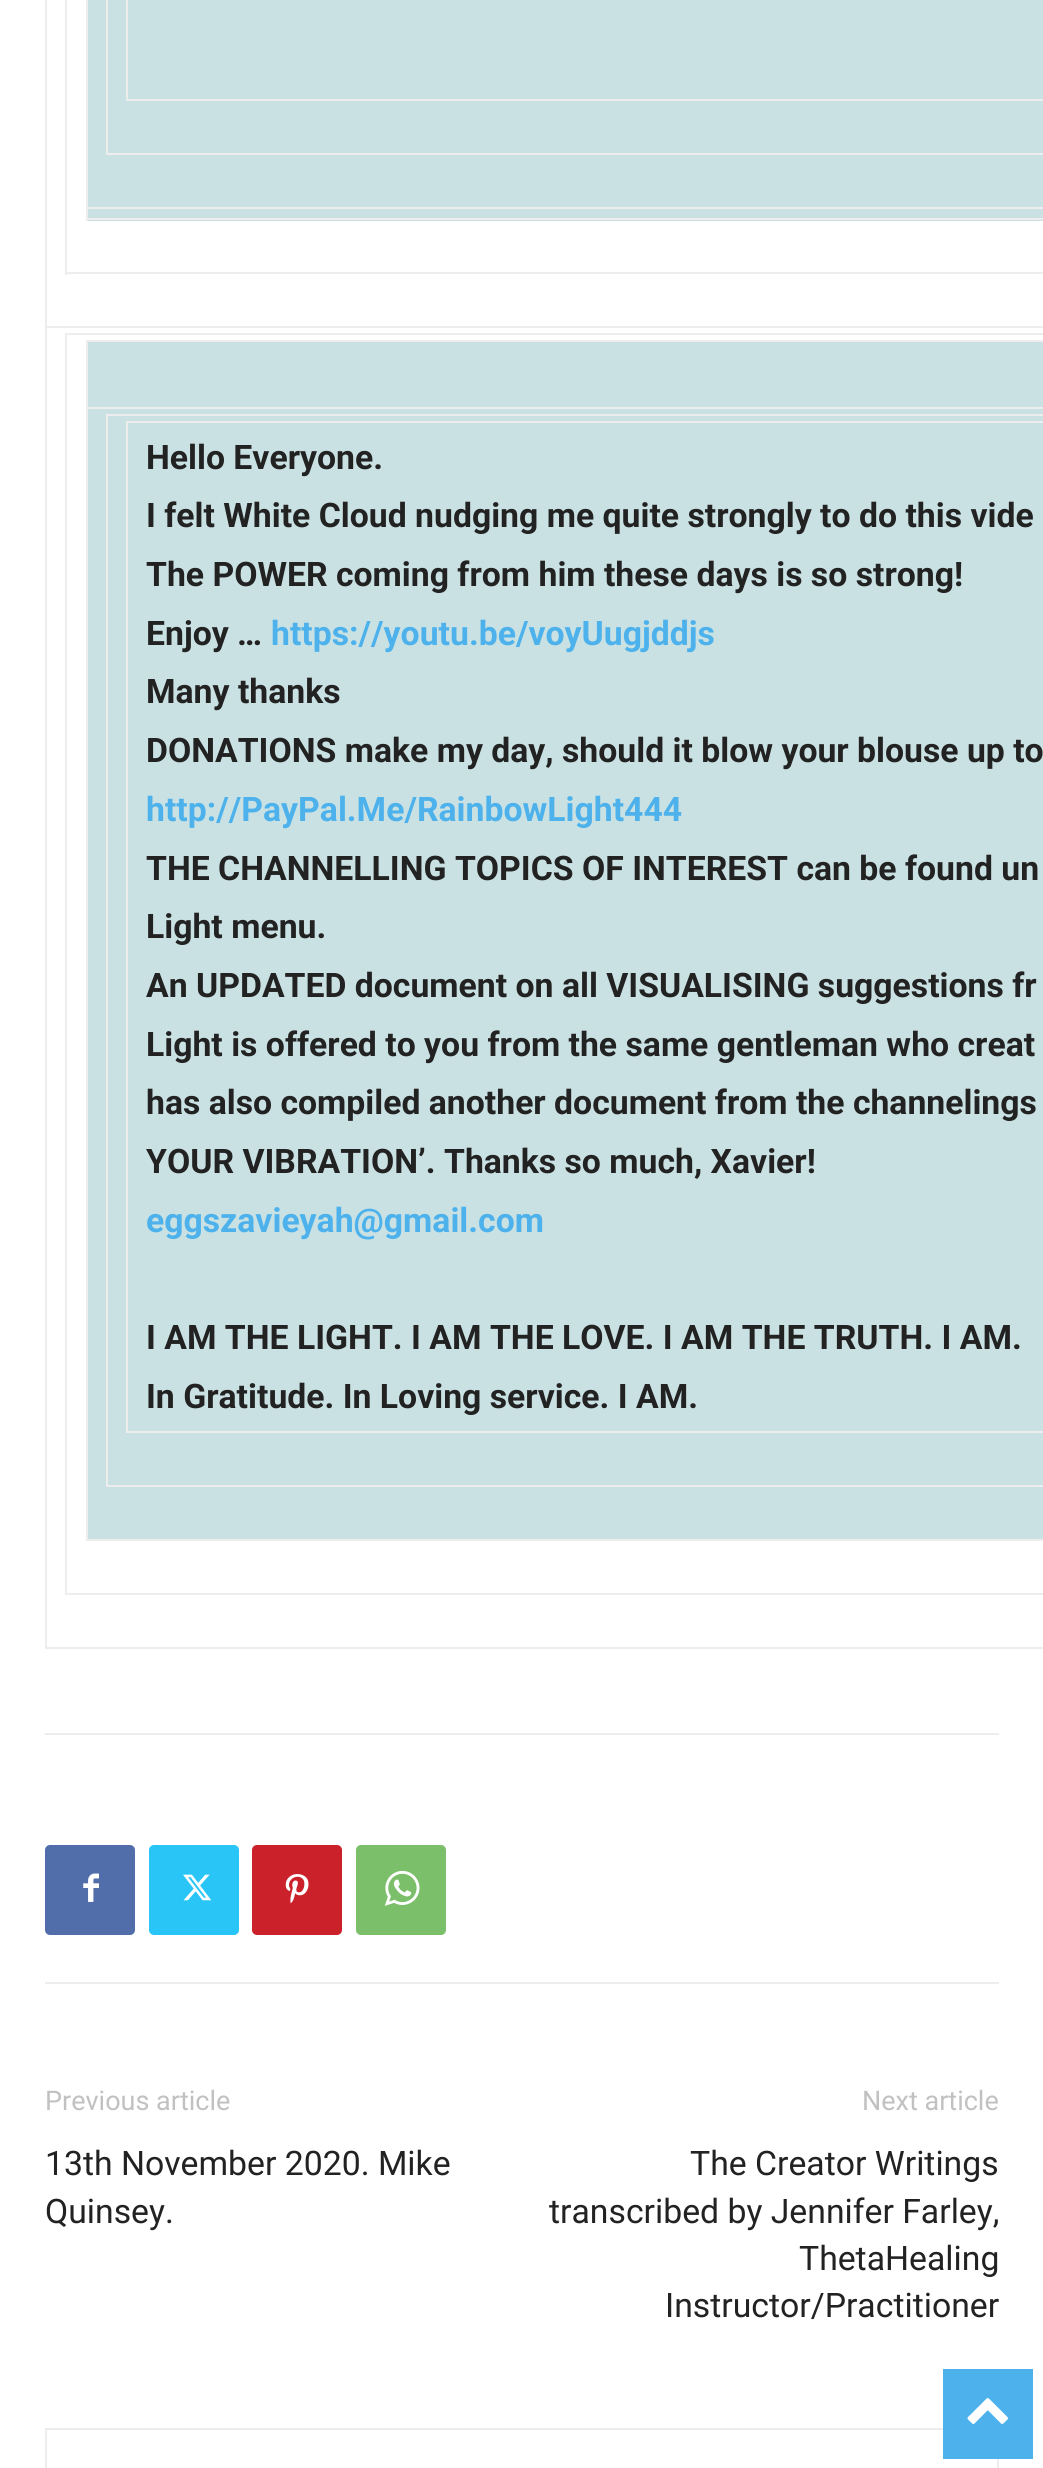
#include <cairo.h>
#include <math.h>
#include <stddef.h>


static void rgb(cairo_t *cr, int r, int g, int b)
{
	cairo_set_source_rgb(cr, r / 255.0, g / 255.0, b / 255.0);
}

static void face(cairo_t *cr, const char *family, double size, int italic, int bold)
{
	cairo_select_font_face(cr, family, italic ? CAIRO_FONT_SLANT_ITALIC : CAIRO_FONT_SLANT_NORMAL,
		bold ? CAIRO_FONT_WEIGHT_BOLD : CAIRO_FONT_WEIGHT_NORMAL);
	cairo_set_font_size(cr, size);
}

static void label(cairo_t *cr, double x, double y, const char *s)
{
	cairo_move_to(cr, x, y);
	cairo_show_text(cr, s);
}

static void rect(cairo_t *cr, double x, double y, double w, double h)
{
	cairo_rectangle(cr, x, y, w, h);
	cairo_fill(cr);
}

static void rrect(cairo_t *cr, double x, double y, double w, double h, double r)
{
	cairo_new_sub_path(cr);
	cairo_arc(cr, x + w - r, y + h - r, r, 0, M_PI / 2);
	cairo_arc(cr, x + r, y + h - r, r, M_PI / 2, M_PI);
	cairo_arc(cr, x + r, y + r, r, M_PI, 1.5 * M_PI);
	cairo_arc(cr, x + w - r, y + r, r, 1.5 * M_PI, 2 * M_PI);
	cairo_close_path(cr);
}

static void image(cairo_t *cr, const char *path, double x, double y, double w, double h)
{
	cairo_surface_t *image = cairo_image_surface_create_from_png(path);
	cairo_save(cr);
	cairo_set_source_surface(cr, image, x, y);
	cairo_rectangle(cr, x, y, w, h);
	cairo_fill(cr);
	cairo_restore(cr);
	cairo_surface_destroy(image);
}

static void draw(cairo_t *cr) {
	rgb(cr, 255, 255, 255);
	cairo_paint(cr);
	rgb(cr, 237, 237, 237);
	rect(cr, 65, 272, 978, 2);
	rect(cr, 65, 0, 2, 275);
	rgb(cr, 202, 225, 227);
	rect(cr, 88, 0, 955, 221);
	rgb(cr, 237, 237, 237);
	rect(cr, 86, 207, 957, 2);
	rect(cr, 86, 218, 957, 2);
	rect(cr, 86, 0, 2, 221);
	rect(cr, 106, 153, 937, 2);
	rect(cr, 106, 0, 2, 155);
	rect(cr, 126, 99, 917, 2);
	rect(cr, 126, 0, 2, 101);
	rect(cr, 45, 326, 998, 2);
	rect(cr, 45, 1647, 998, 2);
	rect(cr, 45, 0, 2, 1649);
	rect(cr, 65, 333, 978, 2);
	rect(cr, 65, 1593, 978, 2);
	rect(cr, 65, 333, 2, 1262);
	rgb(cr, 202, 225, 227);
	rect(cr, 88, 342, 955, 1197);
	rgb(cr, 237, 237, 237);
	rect(cr, 86, 340, 957, 2);
	rect(cr, 86, 407, 957, 2);
	rect(cr, 86, 1539, 957, 2);
	rect(cr, 86, 407, 2, 1134);
	rect(cr, 86, 340, 2, 70);
	rect(cr, 106, 414, 937, 2);
	rect(cr, 106, 1485, 937, 2);
	rect(cr, 106, 414, 2, 1073);
	rect(cr, 126, 421, 917, 2);
	rect(cr, 126, 1431, 917, 2);
	rect(cr, 126, 421, 2, 1012);
	face(cr, "Roboto", 33.75, 0, 1);
	rgb(cr, 34, 34, 34);
	label(cr, 146, 469, "Hello Everyone.");
	label(cr, 146, 527, "I felt White Cloud nudging me quite strongly to do this vide");
	label(cr, 146, 586, "The POWER coming from him these days is so strong!");
	label(cr, 146, 645, "Enjoy …");
	rgb(cr, 77, 178, 236);
	label(cr, 271, 645, "https://youtu.be/voyUugjddjs");
	rgb(cr, 34, 34, 34);
	label(cr, 146, 703, "Many thanks");
	label(cr, 146, 762, "DONATIONS make my day, should it blow your blouse up to");
	rgb(cr, 77, 178, 236);
	label(cr, 146, 821, "http://PayPal.Me/RainbowLight444");
	rgb(cr, 34, 34, 34);
	label(cr, 146, 880, "THE CHANNELLING TOPICS OF INTEREST can be found un");
	label(cr, 146, 938, "Light menu.");
	label(cr, 146, 997, "An UPDATED document on all VISUALISING suggestions fr");
	label(cr, 146, 1056, "Light is offered to you from the same gentleman who creat");
	label(cr, 146, 1114, "has also compiled another document from the channelings");
	label(cr, 146, 1173, "YOUR VIBRATION’. Thanks so much, Xavier!");
	rgb(cr, 77, 178, 236);
	label(cr, 146, 1232, "eggszavieyah@gmail.com");
	rgb(cr, 34, 34, 34);
	label(cr, 146, 1349, "I AM THE LIGHT. I AM THE LOVE. I AM THE TRUTH. I AM.");
	label(cr, 146, 1408, "In Gratitude. In Loving service. I AM.");
	rgb(cr, 237, 237, 237);
	rect(cr, 45, 1733, 954, 2);
	rect(cr, 45, 1982, 954, 2);
	rgb(cr, 81, 110, 171);
	rrect(cr, 45, 1845, 90, 90, 5);
	cairo_fill(cr);
	image(cr, "image0.png", 83, 1873, 16, 29);
	rgb(cr, 41, 197, 246);
	rrect(cr, 149, 1845, 90, 90, 5);
	cairo_fill(cr);
	image(cr, "image1.png", 183, 1874, 29, 27);
	rgb(cr, 202, 33, 42);
	rrect(cr, 252, 1845, 90, 90, 5);
	cairo_fill(cr);
	image(cr, "image2.png", 285, 1874, 24, 30);
	rgb(cr, 123, 191, 106);
	rrect(cr, 356, 1845, 90, 90, 5);
	cairo_fill(cr);
	image(cr, "image3.png", 384, 1870, 36, 36);
	face(cr, "Roboto", 27, 0, 0);
	rgb(cr, 193, 193, 193);
	label(cr, 45, 2110, "Previous article");
	face(cr, "Roboto", 33.75, 0, 0);
	rgb(cr, 34, 34, 34);
	label(cr, 45, 2175, "13th November 2020. Mike");
	label(cr, 45, 2223, "Quinsey.");
	face(cr, "Roboto", 27, 0, 0);
	rgb(cr, 193, 193, 193);
	label(cr, 862, 2110, "Next article");
	face(cr, "Roboto", 33.75, 0, 0);
	rgb(cr, 34, 34, 34);
	label(cr, 690, 2175, "The Creator Writings");
	label(cr, 549, 2223, "transcribed by Jennifer Farley,");
	label(cr, 799, 2270, "ThetaHealing");
	label(cr, 665, 2317, "Instructor/Practitioner");
	cairo_rectangle(cr, 46, 2429, 952, 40);
	rgb(cr, 237, 237, 237);
	cairo_stroke(cr);
	rgb(cr, 77, 178, 236);
	rect(cr, 943, 2369, 90, 90);
	image(cr, "image4.png", 967, 2398, 41, 26);
}

int main(void) {
	cairo_surface_t *surface = cairo_image_surface_create(CAIRO_FORMAT_RGB24, 1043, 2468);
	cairo_t *cr = cairo_create(surface);
	cairo_font_options_t *options = cairo_font_options_create();
	cairo_font_options_set_hint_metrics(options, CAIRO_HINT_METRICS_OFF);
	cairo_font_options_set_hint_style(options, CAIRO_HINT_STYLE_NONE);
	cairo_set_font_options(cr, options);
	cairo_set_miter_limit(cr, 4);
	draw(cr);
	cairo_surface_write_to_png(surface, "render.png");
	cairo_font_options_destroy(options);
	cairo_destroy(cr);
	cairo_surface_destroy(surface);
	return 0;
}
